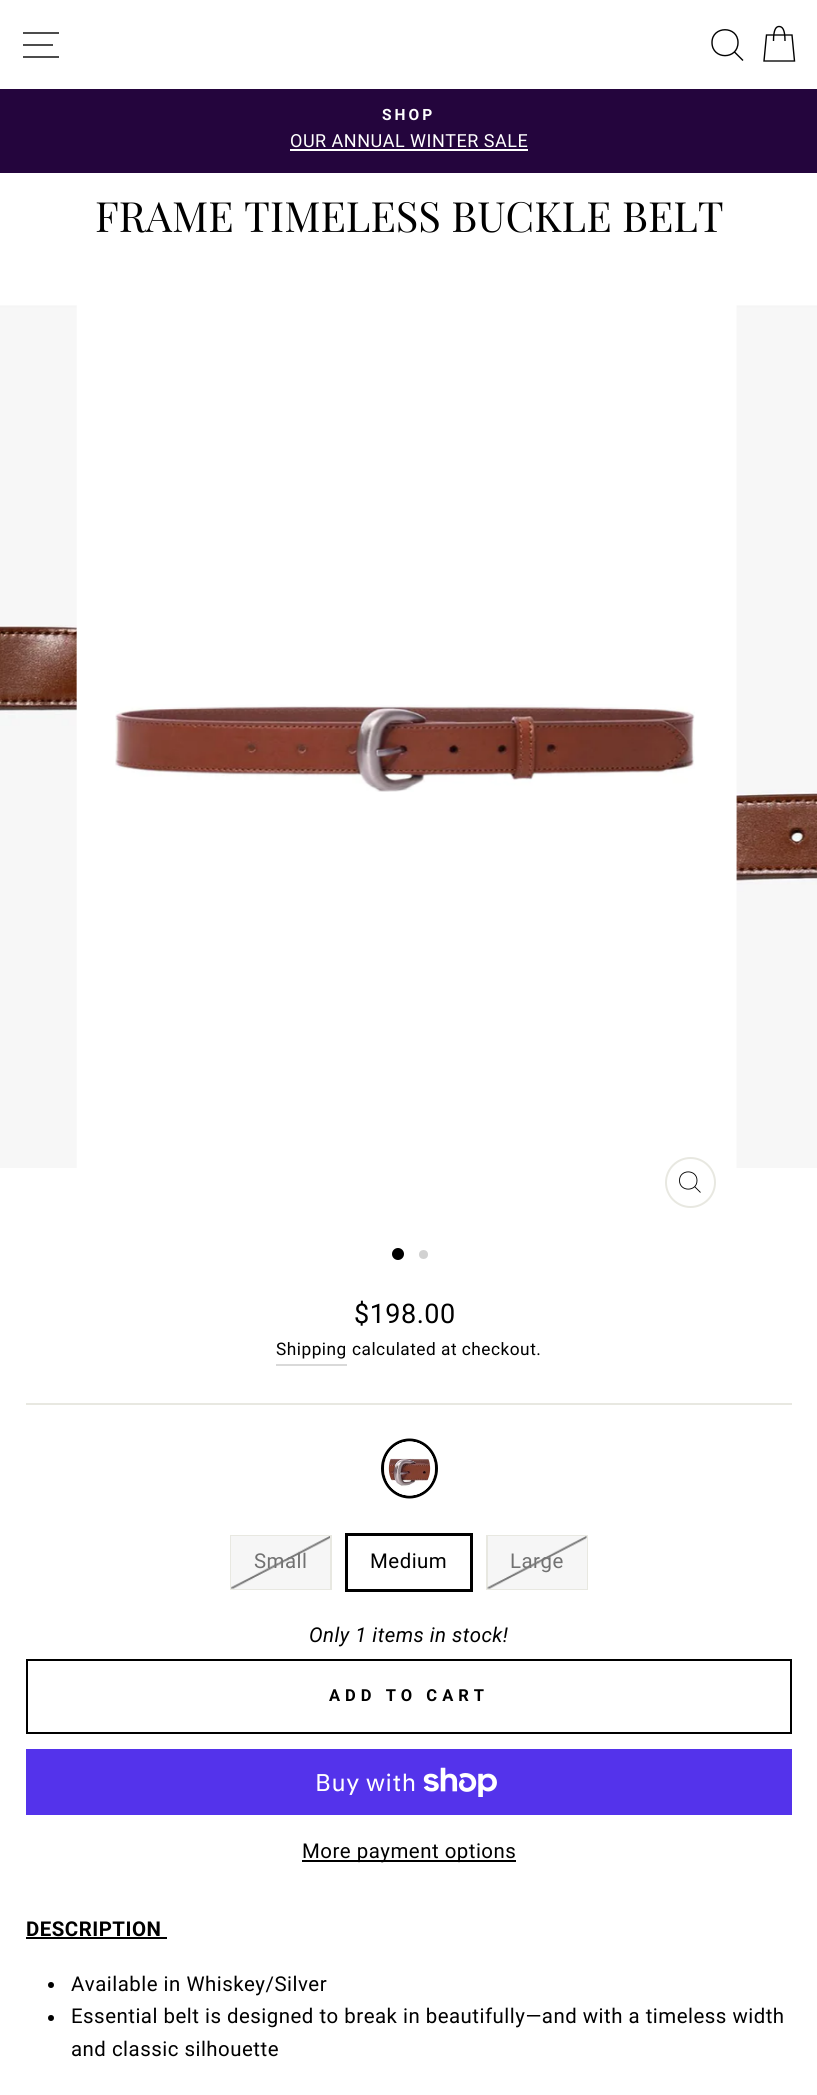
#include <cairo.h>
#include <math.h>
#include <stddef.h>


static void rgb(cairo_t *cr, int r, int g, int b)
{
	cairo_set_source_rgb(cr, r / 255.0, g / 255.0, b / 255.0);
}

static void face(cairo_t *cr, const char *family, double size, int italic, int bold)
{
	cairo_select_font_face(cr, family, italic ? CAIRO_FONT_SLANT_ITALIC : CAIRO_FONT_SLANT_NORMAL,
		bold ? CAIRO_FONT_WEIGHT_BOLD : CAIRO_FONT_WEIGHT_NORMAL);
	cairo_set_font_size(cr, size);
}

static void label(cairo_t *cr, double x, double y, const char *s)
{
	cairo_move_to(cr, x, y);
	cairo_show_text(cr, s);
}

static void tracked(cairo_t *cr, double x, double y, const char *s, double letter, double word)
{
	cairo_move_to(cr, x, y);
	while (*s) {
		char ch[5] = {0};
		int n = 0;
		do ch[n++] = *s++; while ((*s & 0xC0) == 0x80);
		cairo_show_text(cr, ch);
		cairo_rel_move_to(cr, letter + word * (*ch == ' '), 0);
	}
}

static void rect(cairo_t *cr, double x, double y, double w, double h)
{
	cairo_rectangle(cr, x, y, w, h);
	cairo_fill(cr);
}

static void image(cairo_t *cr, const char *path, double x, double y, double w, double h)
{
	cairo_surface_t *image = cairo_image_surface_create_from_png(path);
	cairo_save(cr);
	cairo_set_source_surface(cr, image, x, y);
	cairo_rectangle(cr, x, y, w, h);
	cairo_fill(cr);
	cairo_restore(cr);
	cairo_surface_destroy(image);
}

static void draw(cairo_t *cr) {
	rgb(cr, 255, 255, 255);
	cairo_paint(cr);
	cairo_new_path(cr);
	cairo_move_to(cr, 23, 33);
	cairo_line_to(cr, 59, 33);
	cairo_move_to(cr, 23, 45);
	cairo_line_to(cr, 53, 45);
	cairo_move_to(cr, 23, 57);
	cairo_line_to(cr, 59, 57);
	rgb(cr, 0, 0, 0);
	cairo_set_line_width(cr, 1.4);
	cairo_stroke(cr);
	cairo_new_path(cr);
	cairo_move_to(cr, 738, 42.5);
	cairo_curve_to(cr, 738, 60, 712, 60, 712, 42.5);
	cairo_curve_to(cr, 712, 25.5, 738, 25.5, 738, 42.5);
	cairo_close_path(cr);
	cairo_move_to(cr, 743, 60.5);
	cairo_line_to(cr, 734.5, 52);
	cairo_stroke(cr);
	cairo_new_path(cr);
	cairo_move_to(cr, 773.5, 41);
	cairo_curve_to(cr, 773.5, 29.5, 776, 26.5, 779, 26.5);
	cairo_curve_to(cr, 782.5, 26.5, 785, 29.5, 785, 41);
	cairo_move_to(cr, 766.5, 35);
	cairo_line_to(cr, 792, 35);
	cairo_line_to(cr, 794.5, 61);
	cairo_line_to(cr, 764, 61);
	cairo_close_path(cr);
	cairo_stroke(cr);
	rgb(cr, 36, 5, 61);
	rect(cr, 0, 89, 817, 84);
	face(cr, "Roboto", 15.5, 0, 1);
	rgb(cr, 255, 255, 255);
	tracked(cr, 382, 120, "SHOP", 3, 0);
	face(cr, "Roboto", 18, 0, 0);
	tracked(cr, 290, 147, "OUR ANNUAL WINTER SALE", 0.5, 0);
	rect(cr, 290, 149, 238, 2);
	face(cr, "Playfair Display", 41.7, 0, 0);
	rgb(cr, 0, 0, 0);
	label(cr, 95, 232, "FRAME TIMELESS BUCKLE BELT");
	image(cr, "image0.png", 0, 305, 77, 863);
	image(cr, "image1.png", 115, 704, 580, 88);
	cairo_arc(cr, 690.5, 1182.5, 24.5, 0, 2 * M_PI);
	rgb(cr, 232, 232, 225);
	cairo_set_line_width(cr, 2);
	cairo_stroke(cr);
	cairo_new_path(cr);
	cairo_move_to(cr, 697, 1180.5);
	cairo_curve_to(cr, 697, 1192, 679.5, 1192, 679.5, 1180.5);
	cairo_curve_to(cr, 679.5, 1169, 697, 1169, 697, 1180.5);
	cairo_close_path(cr);
	cairo_move_to(cr, 700.5, 1192.5);
	cairo_line_to(cr, 694.5, 1186.5);
	rgb(cr, 0, 0, 0);
	cairo_set_line_width(cr, 0.9);
	cairo_stroke(cr);
	image(cr, "image2.png", 736, 305, 81, 863);
	cairo_arc(cr, 398, 1254, 6, 0, 2 * M_PI);
	cairo_fill(cr);
	rgb(cr, 209, 209, 209);
	cairo_arc(cr, 423.5, 1254.5, 4.5, 0, 2 * M_PI);
	cairo_fill(cr);
	face(cr, "Roboto", 27, 0, 0);
	rgb(cr, 0, 0, 0);
	tracked(cr, 354, 1323, "$198.00", 0.5, 0);
	rgb(cr, 217, 217, 217);
	rect(cr, 276, 1364, 71, 2);
	face(cr, "Roboto", 17.25, 0, 0);
	rgb(cr, 0, 0, 0);
	tracked(cr, 276, 1355, "Shipping", 0.5, 0);
	tracked(cr, 352, 1355, "calculated at checkout.", 0.5, 0);
	rgb(cr, 232, 232, 225);
	rect(cr, 26, 1403, 766, 2);
	cairo_new_path(cr);
	cairo_move_to(cr, 409.5, 1440);
	cairo_curve_to(cr, 424.5, 1440, 436.5, 1453, 436.5, 1468.5);
	cairo_curve_to(cr, 436.5, 1484, 424.5, 1497, 409.5, 1497);
	cairo_curve_to(cr, 394.5, 1497, 382.5, 1484, 382.5, 1468.5);
	cairo_curve_to(cr, 382.5, 1453, 394.5, 1440, 409.5, 1440);
	cairo_close_path(cr);
	rgb(cr, 0, 0, 0);
	cairo_set_line_width(cr, 3);
	cairo_stroke(cr);
	image(cr, "image3.png", 384, 1441, 51, 55);
	cairo_save(cr);
	cairo_new_path(cr);
	cairo_move_to(cr, 409.5, 1441.5);
	cairo_curve_to(cr, 423.5, 1441.5, 435, 1453.5, 435, 1468.5);
	cairo_curve_to(cr, 435, 1483.5, 423.5, 1495.5, 409.5, 1495.5);
	cairo_curve_to(cr, 395.5, 1495.5, 384, 1483.5, 384, 1468.5);
	cairo_curve_to(cr, 384, 1453.5, 395.5, 1441.5, 409.5, 1441.5);
	cairo_close_path(cr);
	cairo_clip(cr);
	cairo_new_path(cr);
	cairo_move_to(cr, 409.5, 1443);
	cairo_curve_to(cr, 441, 1443, 441, 1494, 409.5, 1494);
	cairo_curve_to(cr, 378, 1494, 378, 1443, 409.5, 1443);
	cairo_close_path(cr);
	rgb(cr, 255, 255, 255);
	cairo_set_line_width(cr, 6);
	cairo_stroke(cr);
	cairo_restore(cr);
	cairo_rectangle(cr, 231, 1536, 100, 53);
	rgb(cr, 232, 232, 225);
	cairo_set_line_width(cr, 2);
	cairo_stroke(cr);
	rgb(cr, 246, 246, 246);
	rect(cr, 231, 1536, 99, 53);
	face(cr, "Roboto", 20.4, 0, 0);
	rgb(cr, 113, 113, 113);
	tracked(cr, 254, 1568, "Small", 0.5, 0);
	image(cr, "image4.png", 231, 1536, 99, 53);
	cairo_rectangle(cr, 346.5, 1534.5, 125, 56);
	rgb(cr, 0, 0, 0);
	cairo_set_line_width(cr, 3);
	cairo_stroke(cr);
	tracked(cr, 370, 1568, "Medium", 0.5, 0);
	cairo_rectangle(cr, 487, 1536, 100, 53);
	rgb(cr, 232, 232, 225);
	cairo_set_line_width(cr, 2);
	cairo_stroke(cr);
	rgb(cr, 246, 246, 246);
	rect(cr, 488, 1536, 99, 53);
	rgb(cr, 113, 113, 113);
	tracked(cr, 510, 1568, "Large", 0.5, 0);
	image(cr, "image5.png", 487, 1536, 100, 53);
	face(cr, "Roboto", 20.4, 1, 0);
	rgb(cr, 0, 0, 0);
	tracked(cr, 309, 1642, "Only 1 items in stock!", 0.5, 0);
	cairo_rectangle(cr, 27, 1660, 764, 73);
	cairo_stroke(cr);
	face(cr, "Roboto", 16.5, 0, 1);
	tracked(cr, 329, 1701, "ADD TO CART", 5, 0);
	rgb(cr, 84, 51, 235);
	rect(cr, 26, 1749, 766, 66);
	face(cr, "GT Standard", 24, 0, 0);
	rgb(cr, 255, 255, 255);
	tracked(cr, 315, 1791, "Buy with", 0.5, 0);
	image(cr, "image6.png", 423, 1767, 74, 30);
	rgb(cr, 0, 0, 0);
	rect(cr, 302, 1860, 214, 2);
	face(cr, "Roboto", 20.4, 0, 0);
	tracked(cr, 302, 1858, "More payment options", 0.5, 0);
	face(cr, "Roboto", 20.4, 0, 1);
	tracked(cr, 26, 1936, "DESCRIPTION", 0.5, 0);
	rect(cr, 26, 1937, 141, 2);
	cairo_new_path(cr);
	cairo_arc(cr, 51, 1985, 3, 0, 2 * M_PI);
	cairo_fill(cr);
	face(cr, "Roboto", 20.4, 0, 0);
	tracked(cr, 71, 1991, "Available in Whiskey/Silver", 0.5, 0);
	cairo_new_path(cr);
	cairo_arc(cr, 51, 2018, 3, 0, 2 * M_PI);
	cairo_fill(cr);
	tracked(cr, 71, 2023, "Essential belt is designed to break in beautifully—and with a timeless width", 0.5, 0);
	tracked(cr, 71, 2056, "and classic silhouette", 0.5, 0);
}

int main(void) {
	cairo_surface_t *surface = cairo_image_surface_create(CAIRO_FORMAT_RGB24, 817, 2095);
	cairo_t *cr = cairo_create(surface);
	cairo_font_options_t *options = cairo_font_options_create();
	cairo_font_options_set_hint_metrics(options, CAIRO_HINT_METRICS_OFF);
	cairo_font_options_set_hint_style(options, CAIRO_HINT_STYLE_NONE);
	cairo_set_font_options(cr, options);
	cairo_set_miter_limit(cr, 4);
	draw(cr);
	cairo_surface_write_to_png(surface, "render.png");
	cairo_font_options_destroy(options);
	cairo_destroy(cr);
	cairo_surface_destroy(surface);
	return 0;
}
